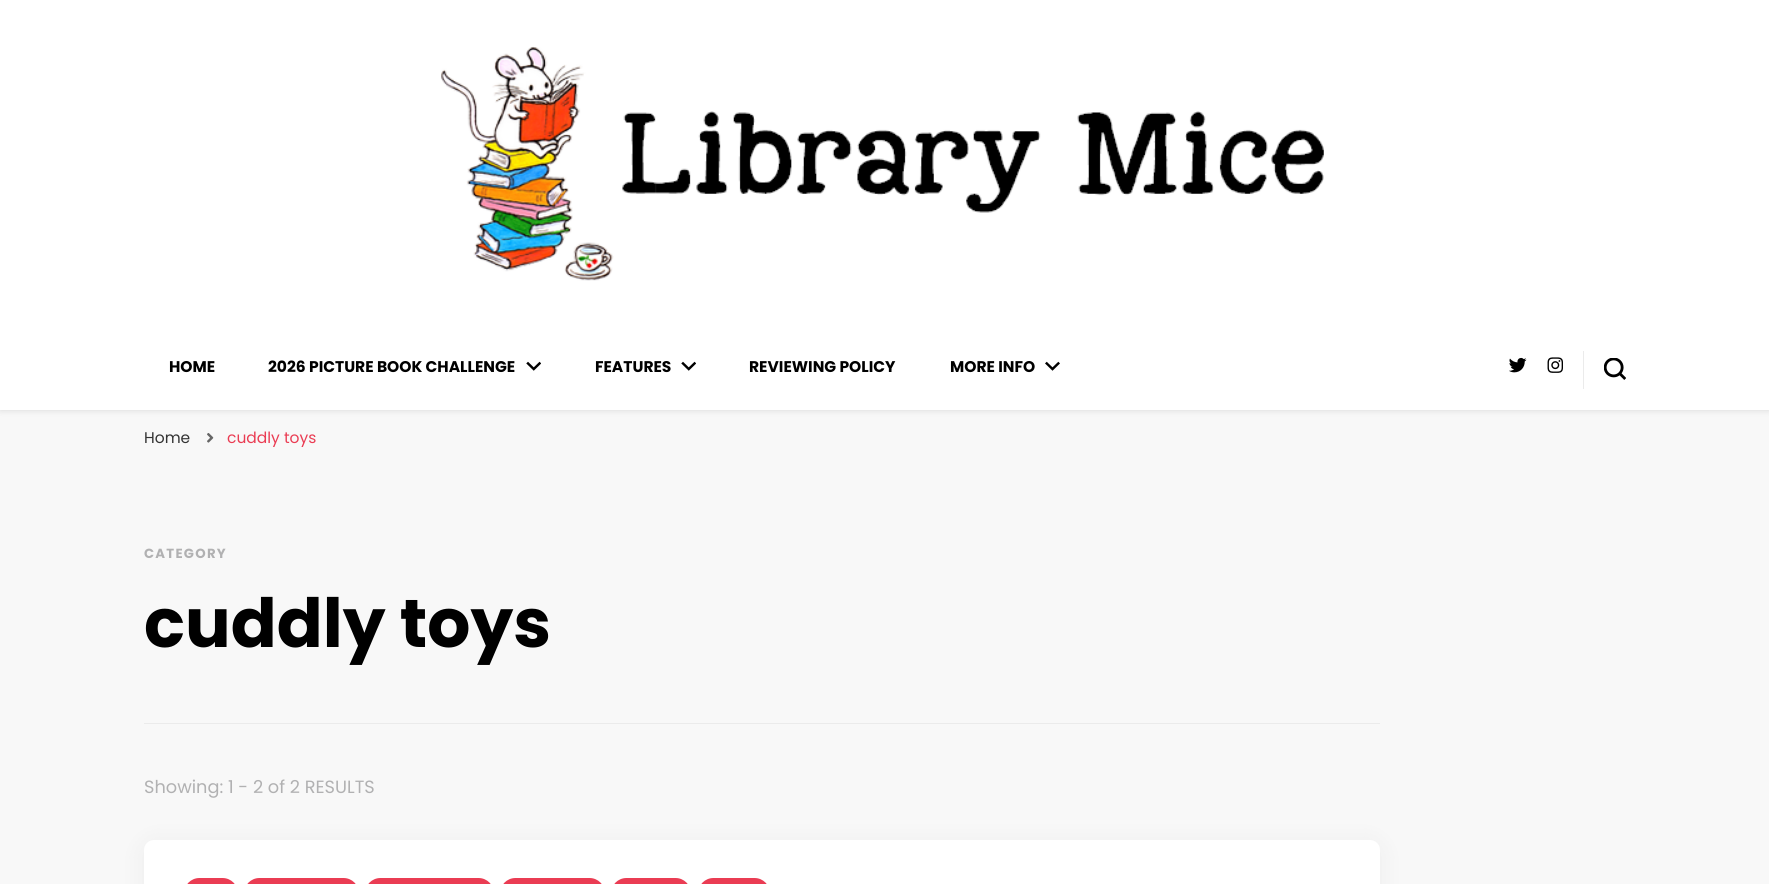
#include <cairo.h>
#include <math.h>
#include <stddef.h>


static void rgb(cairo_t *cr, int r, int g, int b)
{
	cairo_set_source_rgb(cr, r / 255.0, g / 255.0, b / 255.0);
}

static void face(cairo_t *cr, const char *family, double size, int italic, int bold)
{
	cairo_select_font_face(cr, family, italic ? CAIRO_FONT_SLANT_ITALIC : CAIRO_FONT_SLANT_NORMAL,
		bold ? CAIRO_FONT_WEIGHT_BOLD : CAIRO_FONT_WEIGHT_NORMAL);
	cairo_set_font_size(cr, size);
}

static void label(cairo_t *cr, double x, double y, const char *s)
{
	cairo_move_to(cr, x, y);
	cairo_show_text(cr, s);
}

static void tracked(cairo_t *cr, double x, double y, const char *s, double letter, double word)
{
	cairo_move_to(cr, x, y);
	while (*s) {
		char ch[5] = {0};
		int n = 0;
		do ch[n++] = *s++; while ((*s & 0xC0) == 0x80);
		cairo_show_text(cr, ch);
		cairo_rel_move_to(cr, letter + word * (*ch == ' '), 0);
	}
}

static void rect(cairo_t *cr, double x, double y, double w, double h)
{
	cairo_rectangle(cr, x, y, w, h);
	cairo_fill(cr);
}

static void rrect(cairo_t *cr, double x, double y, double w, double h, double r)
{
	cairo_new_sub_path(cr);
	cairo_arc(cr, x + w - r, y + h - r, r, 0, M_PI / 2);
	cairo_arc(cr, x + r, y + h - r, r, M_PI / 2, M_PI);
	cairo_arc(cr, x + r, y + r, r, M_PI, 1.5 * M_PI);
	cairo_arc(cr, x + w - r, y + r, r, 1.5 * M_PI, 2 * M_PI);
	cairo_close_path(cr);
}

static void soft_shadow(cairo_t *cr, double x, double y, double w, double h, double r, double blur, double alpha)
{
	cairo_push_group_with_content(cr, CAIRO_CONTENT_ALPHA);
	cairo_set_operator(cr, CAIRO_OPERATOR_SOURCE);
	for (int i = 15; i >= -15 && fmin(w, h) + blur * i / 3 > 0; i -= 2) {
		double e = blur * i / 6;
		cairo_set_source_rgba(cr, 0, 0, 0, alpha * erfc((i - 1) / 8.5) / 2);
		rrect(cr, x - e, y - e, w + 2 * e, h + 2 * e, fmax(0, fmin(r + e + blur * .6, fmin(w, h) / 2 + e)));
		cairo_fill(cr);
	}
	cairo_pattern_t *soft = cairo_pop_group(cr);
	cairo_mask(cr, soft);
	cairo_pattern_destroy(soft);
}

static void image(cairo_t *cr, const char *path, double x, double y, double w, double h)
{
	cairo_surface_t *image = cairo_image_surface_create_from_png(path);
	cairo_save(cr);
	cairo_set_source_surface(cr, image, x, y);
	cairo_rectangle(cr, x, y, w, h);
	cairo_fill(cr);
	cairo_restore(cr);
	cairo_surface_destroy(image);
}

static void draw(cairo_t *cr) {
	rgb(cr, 248, 248, 248);
	cairo_paint(cr);
	rgb(cr, 0, 0, 0);
	soft_shadow(cr, 0, 1, 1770, 410, 0, 3, 0.1);
	rgb(cr, 255, 255, 255);
	rect(cr, 0, 0, 1769, 410);
	image(cr, "image0.png", 441, 46, 883, 235);
	face(cr, "Poppins", 15.5, 0, 1);
	rgb(cr, 0, 0, 0);
	label(cr, 169, 372, "HOME");
	label(cr, 268, 372, "2026 PICTURE BOOK CHALLENGE");
	image(cr, "image1.png", 526, 361, 15, 10);
	label(cr, 595, 372, "FEATURES");
	image(cr, "image1.png", 681, 361, 15, 10);
	label(cr, 749, 372, "REVIEWING POLICY");
	label(cr, 950, 372, "MORE INFO");
	image(cr, "image2.png", 1045, 361, 15, 10);
	image(cr, "image3.png", 1509, 357, 18, 16);
	image(cr, "image4.png", 1547, 357, 16, 16);
	rgb(cr, 235, 235, 235);
	rect(cr, 1583, 351, 1, 38);
	image(cr, "image5.png", 1604, 358, 22, 22);
	face(cr, "Poppins", 15.5, 0, 0);
	rgb(cr, 51, 51, 51);
	label(cr, 144, 443, "Home");
	image(cr, "image6.png", 207, 433, 7, 10);
	rgb(cr, 234, 60, 83);
	label(cr, 227, 443, "cuddly toys");
	rgb(cr, 235, 235, 235);
	rect(cr, 144, 723, 1236, 1);
	face(cr, "Poppins", 13.25, 0, 1);
	rgb(cr, 177, 177, 178);
	tracked(cr, 144, 558, "CATEGORY", 1.25, 0);
	face(cr, "Poppins", 67.75, 0, 1);
	rgb(cr, 0, 0, 0);
	label(cr, 144, 647, "cuddly toys");
	face(cr, "Poppins", 17.75, 0, 0);
	rgb(cr, 177, 177, 178);
	label(cr, 144, 793, "Showing: 1 - 2 of 2 RESULTS");
	rgb(cr, 0, 0, 0);
	soft_shadow(cr, 144, 843, 1236, 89, 10, 12.5, 0.05);
	rgb(cr, 255, 255, 255);
	rrect(cr, 144, 840, 1236, 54, 10);
	cairo_fill(cr);
	rgb(cr, 234, 60, 83);
	rrect(cr, 184, 878, 54, 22, 15.5);
	cairo_fill(cr);
	rrect(cr, 244, 878, 115, 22, 15.5);
	cairo_fill(cr);
	rrect(cr, 365, 878, 129, 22, 15.5);
	cairo_fill(cr);
	rrect(cr, 500, 878, 105, 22, 15.5);
	cairo_fill(cr);
	rrect(cr, 611, 878, 80, 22, 15.5);
	cairo_fill(cr);
	rrect(cr, 698, 878, 72, 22, 15.5);
	cairo_fill(cr);
}

int main(void) {
	cairo_surface_t *surface = cairo_image_surface_create(CAIRO_FORMAT_RGB24, 1769, 884);
	cairo_t *cr = cairo_create(surface);
	cairo_font_options_t *options = cairo_font_options_create();
	cairo_font_options_set_hint_metrics(options, CAIRO_HINT_METRICS_OFF);
	cairo_font_options_set_hint_style(options, CAIRO_HINT_STYLE_NONE);
	cairo_set_font_options(cr, options);
	cairo_set_miter_limit(cr, 4);
	draw(cr);
	cairo_surface_write_to_png(surface, "render.png");
	cairo_font_options_destroy(options);
	cairo_destroy(cr);
	cairo_surface_destroy(surface);
	return 0;
}
